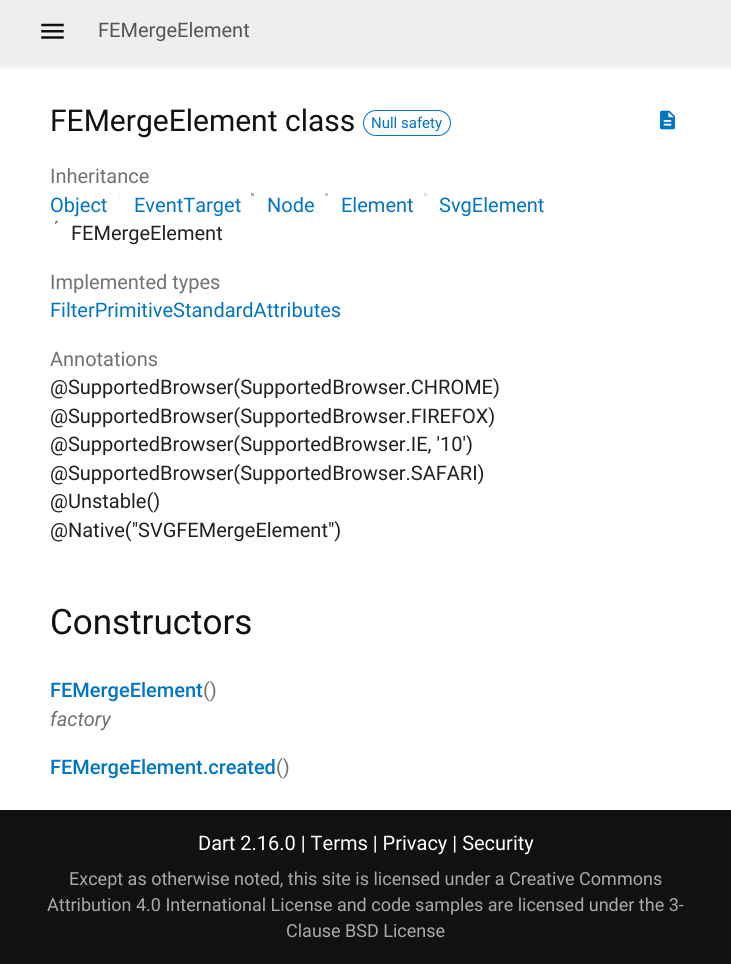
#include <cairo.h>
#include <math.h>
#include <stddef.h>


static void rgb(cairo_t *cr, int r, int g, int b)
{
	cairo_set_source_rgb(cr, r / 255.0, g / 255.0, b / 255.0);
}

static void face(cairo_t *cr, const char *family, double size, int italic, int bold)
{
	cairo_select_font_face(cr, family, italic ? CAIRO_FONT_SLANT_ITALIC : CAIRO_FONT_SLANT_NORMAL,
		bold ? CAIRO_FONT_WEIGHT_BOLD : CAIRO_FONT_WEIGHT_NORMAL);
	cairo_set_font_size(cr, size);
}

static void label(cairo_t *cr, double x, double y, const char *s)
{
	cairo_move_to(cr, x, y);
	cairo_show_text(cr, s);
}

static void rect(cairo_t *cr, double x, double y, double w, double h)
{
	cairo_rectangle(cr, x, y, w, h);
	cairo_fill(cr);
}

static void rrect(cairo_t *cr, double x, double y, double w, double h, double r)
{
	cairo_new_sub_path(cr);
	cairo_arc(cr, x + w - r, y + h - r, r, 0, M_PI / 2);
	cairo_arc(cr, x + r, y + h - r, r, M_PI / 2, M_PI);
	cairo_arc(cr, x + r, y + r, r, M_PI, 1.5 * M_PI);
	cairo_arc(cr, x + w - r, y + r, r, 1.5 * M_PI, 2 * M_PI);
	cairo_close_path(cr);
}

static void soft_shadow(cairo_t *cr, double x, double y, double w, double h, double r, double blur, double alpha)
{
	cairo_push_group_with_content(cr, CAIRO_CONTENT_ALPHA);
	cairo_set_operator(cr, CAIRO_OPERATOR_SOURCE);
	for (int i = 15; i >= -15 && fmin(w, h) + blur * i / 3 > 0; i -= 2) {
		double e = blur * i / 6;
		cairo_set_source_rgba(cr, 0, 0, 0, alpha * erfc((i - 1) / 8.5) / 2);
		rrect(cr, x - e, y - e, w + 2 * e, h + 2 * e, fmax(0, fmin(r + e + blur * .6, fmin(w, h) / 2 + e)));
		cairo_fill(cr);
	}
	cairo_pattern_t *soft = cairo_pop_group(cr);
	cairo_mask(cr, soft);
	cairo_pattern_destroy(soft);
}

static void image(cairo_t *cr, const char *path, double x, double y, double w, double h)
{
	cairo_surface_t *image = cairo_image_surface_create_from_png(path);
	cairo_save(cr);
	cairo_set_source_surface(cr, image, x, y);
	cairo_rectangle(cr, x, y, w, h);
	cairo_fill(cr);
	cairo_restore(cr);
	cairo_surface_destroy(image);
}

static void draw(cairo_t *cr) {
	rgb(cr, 255, 255, 255);
	cairo_paint(cr);
	rgb(cr, 0, 0, 0);
	soft_shadow(cr, 0, 4, 731, 62, 0, 3, 0.1);
	rgb(cr, 238, 238, 238);
	rect(cr, 0, 0, 731, 63);
	image(cr, "image0.png", 41, 23, 23, 16);
	face(cr, "Roboto", 20, 0, 0);
	rgb(cr, 85, 85, 85);
	label(cr, 98, 37, "FEMergeElement");
	face(cr, "Roboto", 30, 0, 0);
	rgb(cr, 17, 17, 17);
	label(cr, 50, 131, "FEMergeElement class");
	rrect(cr, 363.5, 110.5, 87, 25, 12.5);
	rgb(cr, 1, 117, 194);
	cairo_set_line_width(cr, 1);
	cairo_stroke(cr);
	face(cr, "Roboto", 15, 0, 0);
	label(cr, 371, 128, "Null safety");
	image(cr, "image1.png", 660, 110, 15, 20);
	face(cr, "Roboto", 20, 0, 0);
	rgb(cr, 114, 114, 114);
	label(cr, 50, 183, "Inheritance");
	rgb(cr, 1, 117, 194);
	label(cr, 50, 212, "Object");
	rgb(cr, 245, 245, 245);
	rect(cr, 118, 193, 3, 3);
	rgb(cr, 1, 117, 194);
	label(cr, 134, 212, "EventTarget");
	rgb(cr, 168, 168, 168);
	rect(cr, 251, 193, 3, 3);
	rgb(cr, 1, 117, 194);
	label(cr, 267, 212, "Node");
	rgb(cr, 197, 197, 197);
	rect(cr, 325, 193, 3, 3);
	rgb(cr, 1, 117, 194);
	label(cr, 341, 212, "Element");
	rgb(cr, 225, 225, 225);
	rect(cr, 424, 193, 3, 3);
	rgb(cr, 1, 117, 194);
	label(cr, 439, 212, "SvgElement");
	image(cr, "image2.png", 55, 221, 4, 4);
	rgb(cr, 33, 33, 33);
	label(cr, 71, 240, "FEMergeElement");
	rgb(cr, 114, 114, 114);
	label(cr, 50, 289, "Implemented types");
	rgb(cr, 1, 117, 194);
	label(cr, 50, 317, "FilterPrimitiveStandardAttributes");
	rgb(cr, 114, 114, 114);
	label(cr, 50, 366, "Annotations");
	rgb(cr, 33, 33, 33);
	label(cr, 50, 394, "@SupportedBrowser(SupportedBrowser.CHROME)");
	label(cr, 50, 423, "@SupportedBrowser(SupportedBrowser.FIREFOX)");
	label(cr, 50, 451, "@SupportedBrowser(SupportedBrowser.IE, '10')");
	label(cr, 50, 480, "@SupportedBrowser(SupportedBrowser.SAFARI)");
	label(cr, 50, 508, "@Unstable()");
	label(cr, 50, 537, "@Native(\"SVGFEMergeElement\")");
	face(cr, "Roboto", 35, 0, 0);
	rgb(cr, 17, 17, 17);
	label(cr, 50, 634, "Constructors");
	face(cr, "Roboto Medium", 20, 0, 0);
	rgb(cr, 1, 117, 194);
	label(cr, 50, 697, "FEMergeElement");
	face(cr, "Roboto", 20, 0, 0);
	rgb(cr, 114, 114, 114);
	label(cr, 203, 697, "()");
	face(cr, "Roboto", 20, 1, 0);
	label(cr, 50, 726, "factory");
	face(cr, "Roboto Medium", 20, 0, 0);
	rgb(cr, 1, 117, 194);
	label(cr, 50, 774, "FEMergeElement.created");
	face(cr, "Roboto", 20, 0, 0);
	rgb(cr, 114, 114, 114);
	label(cr, 276, 774, "()");
	rgb(cr, 17, 17, 17);
	rect(cr, 0, 810, 731, 154);
	rgb(cr, 255, 255, 255);
	label(cr, 198, 850, "Dart 2.16.0 | Terms | Privacy | Security");
	face(cr, "Roboto", 18, 0, 0);
	rgb(cr, 169, 169, 169);
	label(cr, 69, 885, "Except as otherwise noted, this site is licensed under a Creative Commons");
	label(cr, 47, 911, "Attribution 4.0 International License and code samples are licensed under the 3-");
	label(cr, 286, 937, "Clause BSD License");
}

int main(void) {
	cairo_surface_t *surface = cairo_image_surface_create(CAIRO_FORMAT_RGB24, 731, 964);
	cairo_t *cr = cairo_create(surface);
	cairo_font_options_t *options = cairo_font_options_create();
	cairo_font_options_set_hint_metrics(options, CAIRO_HINT_METRICS_OFF);
	cairo_font_options_set_hint_style(options, CAIRO_HINT_STYLE_NONE);
	cairo_set_font_options(cr, options);
	cairo_set_miter_limit(cr, 4);
	draw(cr);
	cairo_surface_write_to_png(surface, "render.png");
	cairo_font_options_destroy(options);
	cairo_destroy(cr);
	cairo_surface_destroy(surface);
	return 0;
}
